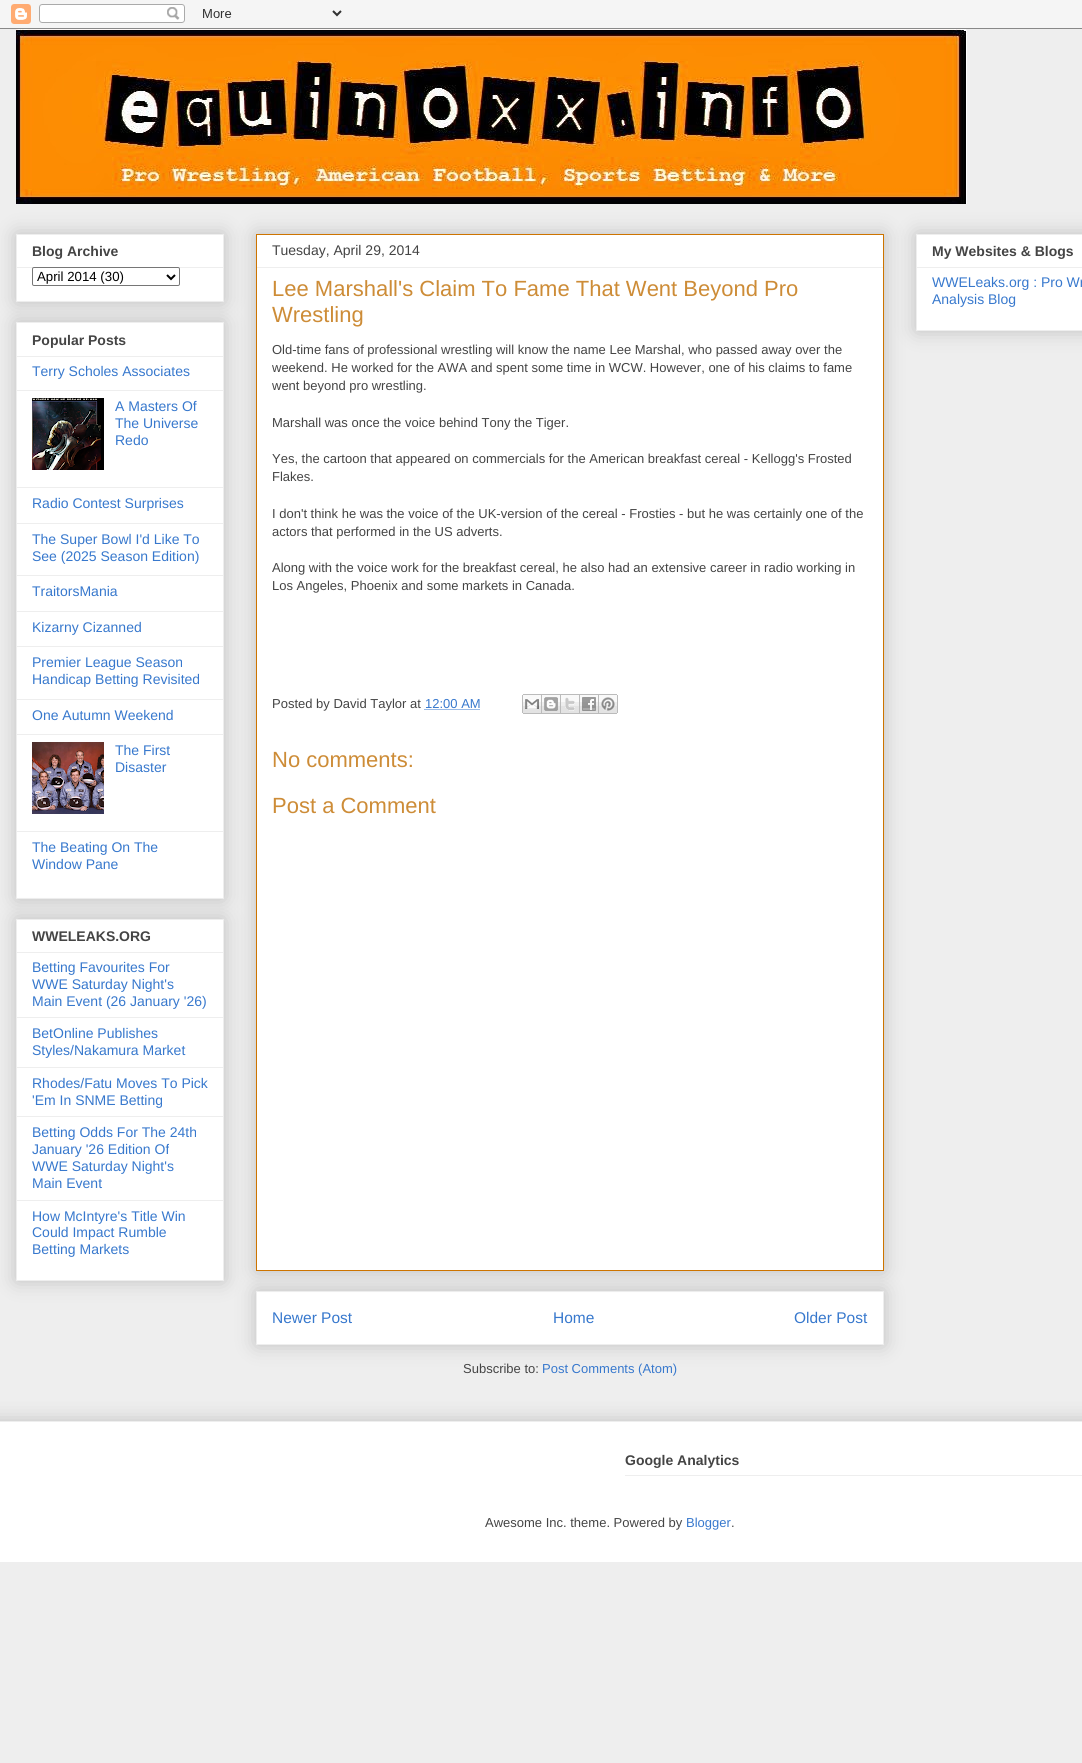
#include <cairo.h>
#include <math.h>
#include <stddef.h>


static void rgb(cairo_t *cr, int r, int g, int b)
{
	cairo_set_source_rgb(cr, r / 255.0, g / 255.0, b / 255.0);
}

static void face(cairo_t *cr, const char *family, double size, int italic, int bold)
{
	cairo_select_font_face(cr, family, italic ? CAIRO_FONT_SLANT_ITALIC : CAIRO_FONT_SLANT_NORMAL,
		bold ? CAIRO_FONT_WEIGHT_BOLD : CAIRO_FONT_WEIGHT_NORMAL);
	cairo_set_font_size(cr, size);
}

static void label(cairo_t *cr, double x, double y, const char *s)
{
	cairo_move_to(cr, x, y);
	cairo_show_text(cr, s);
}

static void rect(cairo_t *cr, double x, double y, double w, double h)
{
	cairo_rectangle(cr, x, y, w, h);
	cairo_fill(cr);
}

static void rrect(cairo_t *cr, double x, double y, double w, double h, double r)
{
	cairo_new_sub_path(cr);
	cairo_arc(cr, x + w - r, y + h - r, r, 0, M_PI / 2);
	cairo_arc(cr, x + r, y + h - r, r, M_PI / 2, M_PI);
	cairo_arc(cr, x + r, y + r, r, M_PI, 1.5 * M_PI);
	cairo_arc(cr, x + w - r, y + r, r, 1.5 * M_PI, 2 * M_PI);
	cairo_close_path(cr);
}

static void soft_shadow(cairo_t *cr, double x, double y, double w, double h, double r, double blur, double alpha)
{
	cairo_push_group_with_content(cr, CAIRO_CONTENT_ALPHA);
	cairo_set_operator(cr, CAIRO_OPERATOR_SOURCE);
	for (int i = 15; i >= -15 && fmin(w, h) + blur * i / 3 > 0; i -= 2) {
		double e = blur * i / 6;
		cairo_set_source_rgba(cr, 0, 0, 0, alpha * erfc((i - 1) / 8.5) / 2);
		rrect(cr, x - e, y - e, w + 2 * e, h + 2 * e, fmax(0, fmin(r + e + blur * .6, fmin(w, h) / 2 + e)));
		cairo_fill(cr);
	}
	cairo_pattern_t *soft = cairo_pop_group(cr);
	cairo_mask(cr, soft);
	cairo_pattern_destroy(soft);
}

static void image(cairo_t *cr, const char *path, double x, double y, double w, double h)
{
	cairo_surface_t *image = cairo_image_surface_create_from_png(path);
	cairo_save(cr);
	cairo_set_source_surface(cr, image, x, y);
	cairo_rectangle(cr, x, y, w, h);
	cairo_fill(cr);
	cairo_restore(cr);
	cairo_surface_destroy(image);
}

static void draw(cairo_t *cr) {
	rgb(cr, 238, 238, 238);
	cairo_paint(cr);
	image(cr, "image0.png", 0, 0, 1082, 29);
	image(cr, "image1.png", 16, 29, 951, 175);
	rgb(cr, 0, 0, 0);
	soft_shadow(cr, 16, 234, 208, 68, 0, 10, 0.2);
	rgb(cr, 255, 255, 255);
	cairo_rectangle(cr, 16.5, 234.5, 207, 67);
	cairo_fill_preserve(cr);
	rgb(cr, 238, 238, 238);
	cairo_set_line_width(cr, 1);
	cairo_stroke(cr);
	face(cr, "Liberation Sans", 14, 0, 1);
	rgb(cr, 68, 68, 68);
	label(cr, 32, 256, "Blog Archive");
	rgb(cr, 238, 238, 238);
	rect(cr, 17, 267, 206, 1);
	rgb(cr, 255, 255, 255);
	rrect(cr, 32.5, 267.5, 147, 18, 1.5);
	cairo_fill_preserve(cr);
	rgb(cr, 118, 118, 118);
	cairo_stroke(cr);
	cairo_new_path(cr);
	cairo_move_to(cr, 167, 275);
	cairo_line_to(cr, 171, 279);
	cairo_line_to(cr, 175, 275);
	rgb(cr, 0, 0, 0);
	cairo_set_line_width(cr, 2);
	cairo_stroke(cr);
	face(cr, "Liberation Sans", 13.25, 0, 0);
	label(cr, 37, 281, "April 2014 (30)");
	rgb(cr, 0, 0, 0);
	soft_shadow(cr, 16, 322, 208, 577, 0, 10, 0.2);
	rgb(cr, 255, 255, 255);
	cairo_rectangle(cr, 16.5, 322.5, 207, 576);
	cairo_fill_preserve(cr);
	rgb(cr, 238, 238, 238);
	cairo_set_line_width(cr, 1);
	cairo_stroke(cr);
	face(cr, "Liberation Sans", 14, 0, 1);
	rgb(cr, 68, 68, 68);
	label(cr, 32, 345, "Popular Posts");
	rgb(cr, 238, 238, 238);
	rect(cr, 17, 356, 206, 1);
	face(cr, "Liberation Sans", 14, 0, 0);
	rgb(cr, 55, 120, 205);
	label(cr, 32, 376, "Terry Scholes Associates");
	rgb(cr, 238, 238, 238);
	rect(cr, 17, 390, 206, 1);
	image(cr, "image2.png", 32, 398, 72, 72);
	rgb(cr, 55, 120, 205);
	label(cr, 115, 411, "A Masters Of");
	label(cr, 115, 428, "The Universe");
	label(cr, 115, 445, "Redo");
	rgb(cr, 238, 238, 238);
	rect(cr, 17, 487, 206, 1);
	rgb(cr, 55, 120, 205);
	label(cr, 32, 508, "Radio Contest Surprises");
	rgb(cr, 238, 238, 238);
	rect(cr, 17, 523, 206, 1);
	rgb(cr, 55, 120, 205);
	label(cr, 32, 544, "The Super Bowl I'd Like To");
	label(cr, 32, 561, "See (2025 Season Edition)");
	rgb(cr, 238, 238, 238);
	rect(cr, 17, 575, 206, 1);
	rgb(cr, 55, 120, 205);
	label(cr, 32, 596, "TraitorsMania");
	rgb(cr, 238, 238, 238);
	rect(cr, 17, 611, 206, 1);
	rgb(cr, 55, 120, 205);
	label(cr, 32, 632, "Kizarny Cizanned");
	rgb(cr, 238, 238, 238);
	rect(cr, 17, 646, 206, 1);
	rgb(cr, 55, 120, 205);
	label(cr, 32, 667, "Premier League Season");
	label(cr, 32, 684, "Handicap Betting Revisited");
	rgb(cr, 238, 238, 238);
	rect(cr, 17, 699, 206, 1);
	rgb(cr, 55, 120, 205);
	label(cr, 32, 720, "One Autumn Weekend");
	rgb(cr, 238, 238, 238);
	rect(cr, 17, 734, 206, 1);
	image(cr, "image3.png", 32, 742, 72, 72);
	rgb(cr, 55, 120, 205);
	label(cr, 115, 755, "The First");
	label(cr, 115, 772, "Disaster");
	rgb(cr, 238, 238, 238);
	rect(cr, 17, 831, 206, 1);
	rgb(cr, 55, 120, 205);
	label(cr, 32, 852, "The Beating On The");
	label(cr, 32, 869, "Window Pane");
	rgb(cr, 0, 0, 0);
	soft_shadow(cr, 16, 919, 208, 362, 0, 10, 0.2);
	rgb(cr, 255, 255, 255);
	cairo_rectangle(cr, 16.5, 919.5, 207, 361);
	cairo_fill_preserve(cr);
	rgb(cr, 238, 238, 238);
	cairo_stroke(cr);
	face(cr, "Liberation Sans", 14, 0, 1);
	rgb(cr, 68, 68, 68);
	label(cr, 32, 941, "WWELEAKS.ORG");
	rgb(cr, 238, 238, 238);
	rect(cr, 17, 952, 206, 1);
	face(cr, "Liberation Sans", 14, 0, 0);
	rgb(cr, 55, 120, 205);
	label(cr, 32, 972, "Betting Favourites For");
	label(cr, 32, 989, "WWE Saturday Night's");
	label(cr, 32, 1006, "Main Event (26 January '26)");
	rgb(cr, 238, 238, 238);
	rect(cr, 17, 1017, 206, 1);
	rgb(cr, 55, 120, 205);
	label(cr, 32, 1038, "BetOnline Publishes");
	label(cr, 32, 1055, "Styles/Nakamura Market");
	rgb(cr, 238, 238, 238);
	rect(cr, 17, 1067, 206, 1);
	rgb(cr, 55, 120, 205);
	label(cr, 32, 1088, "Rhodes/Fatu Moves To Pick");
	label(cr, 32, 1105, "'Em In SNME Betting");
	rgb(cr, 238, 238, 238);
	rect(cr, 17, 1116, 206, 1);
	rgb(cr, 55, 120, 205);
	label(cr, 32, 1137, "Betting Odds For The 24th");
	label(cr, 32, 1154, "January '26 Edition Of");
	label(cr, 32, 1171, "WWE Saturday Night's");
	label(cr, 32, 1188, "Main Event");
	rgb(cr, 238, 238, 238);
	rect(cr, 17, 1200, 206, 1);
	rgb(cr, 55, 120, 205);
	label(cr, 32, 1221, "How McIntyre's Title Win");
	label(cr, 32, 1237, "Could Impact Rumble");
	label(cr, 32, 1254, "Betting Markets");
	rgb(cr, 0, 0, 0);
	soft_shadow(cr, 256, 1291, 628, 54, 0, 10, 0.2);
	rgb(cr, 255, 255, 255);
	cairo_rectangle(cr, 256.5, 1291.5, 627, 53);
	cairo_fill_preserve(cr);
	rgb(cr, 238, 238, 238);
	cairo_stroke(cr);
	rgb(cr, 0, 0, 0);
	soft_shadow(cr, 256, 234, 628, 1037, 0, 10, 0.2);
	rgb(cr, 255, 255, 255);
	cairo_rectangle(cr, 256.5, 234.5, 627, 1036);
	cairo_fill_preserve(cr);
	rgb(cr, 205, 116, 0);
	cairo_stroke(cr);
	rgb(cr, 68, 68, 68);
	label(cr, 272, 255, "Tuesday, April 29, 2014");
	rgb(cr, 238, 238, 238);
	rect(cr, 257, 267, 626, 1);
	face(cr, "Liberation Sans", 22, 0, 0);
	rgb(cr, 205, 140, 55);
	label(cr, 272, 296, "Lee Marshall's Claim To Fame That Went Beyond Pro");
	label(cr, 272, 322, "Wrestling");
	face(cr, "Liberation Sans", 13, 0, 0);
	rgb(cr, 68, 68, 68);
	label(cr, 272, 354, "Old-time fans of professional wrestling will know the name Lee Marshal, who passed away over the");
	label(cr, 272, 372, "weekend. He worked for the AWA and spent some time in WCW. However, one of his claims to fame");
	label(cr, 272, 390, "went beyond pro wrestling.");
	label(cr, 272, 427, "Marshall was once the voice behind Tony the Tiger.");
	label(cr, 272, 463, "Yes, the cartoon that appeared on commercials for the American breakfast cereal - Kellogg's Frosted");
	label(cr, 272, 481, "Flakes.");
	label(cr, 272, 518, "I don't think he was the voice of the UK-version of the cereal - Frosties - but he was certainly one of the");
	label(cr, 272, 536, "actors that performed in the US adverts.");
	label(cr, 272, 572, "Along with the voice work for the breakfast cereal, he also had an extensive career in radio working in");
	label(cr, 272, 590, "Los Angeles, Phoenix and some markets in Canada.");
	label(cr, 272, 708, "Posted by David Taylor at");
	rgb(cr, 55, 120, 205);
	label(cr, 425, 708, "12:00 AM");
	cairo_new_path(cr);
	cairo_move_to(cr, 424.5, 709.5);
	cairo_line_to(cr, 480, 709.5);
	cairo_set_dash(cr, (double[]){1, 1}, 2, 0);
	cairo_stroke(cr);
	image(cr, "image4.png", 522, 694, 20, 20);
	image(cr, "image5.png", 542, 694, 19, 20);
	image(cr, "image6.png", 561, 694, 19, 20);
	image(cr, "image7.png", 580, 694, 19, 20);
	image(cr, "image8.png", 599, 694, 19, 20);
	face(cr, "Liberation Sans", 22, 0, 0);
	rgb(cr, 205, 140, 55);
	label(cr, 272, 767, "No comments:");
	label(cr, 272, 813, "Post a Comment");
	face(cr, "Liberation Sans", 15.5, 0, 0);
	rgb(cr, 55, 120, 205);
	label(cr, 272, 1323, "Newer Post");
	label(cr, 553, 1323, "Home");
	label(cr, 794, 1323, "Older Post");
	face(cr, "Liberation Sans", 13, 0, 0);
	rgb(cr, 68, 68, 68);
	label(cr, 463, 1373, "Subscribe to:");
	rgb(cr, 55, 120, 205);
	label(cr, 542, 1373, "Post Comments (Atom)");
	rgb(cr, 0, 0, 0);
	soft_shadow(cr, 916, 234, 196, 97, 0, 10, 0.2);
	rgb(cr, 255, 255, 255);
	cairo_rectangle(cr, 916.5, 234.5, 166, 96);
	cairo_fill_preserve(cr);
	rgb(cr, 238, 238, 238);
	cairo_set_dash(cr, NULL, 0, 0);
	cairo_stroke(cr);
	face(cr, "Liberation Sans", 14, 0, 1);
	rgb(cr, 68, 68, 68);
	label(cr, 932, 256, "My Websites & Blogs");
	rgb(cr, 238, 238, 238);
	rect(cr, 917, 267, 165, 1);
	face(cr, "Liberation Sans", 14, 0, 0);
	rgb(cr, 55, 120, 205);
	label(cr, 932, 287, "WWELeaks.org : Pro Wr");
	label(cr, 932, 304, "Analysis Blog");
	cairo_save(cr);
	cairo_rectangle(cr, 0, 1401, 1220, 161);
	cairo_clip(cr);
	rgb(cr, 0, 0, 0);
	soft_shadow(cr, -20, 1421, 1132, 141, 0, 10, 0.2);
	cairo_restore(cr);
	rgb(cr, 255, 255, 255);
	rect(cr, 0, 1422, 1082, 140);
	rgb(cr, 238, 238, 238);
	rect(cr, 0, 1421, 1082, 1);
	face(cr, "Liberation Sans", 14, 0, 1);
	rgb(cr, 68, 68, 68);
	label(cr, 625, 1465, "Google Analytics");
	rgb(cr, 238, 238, 238);
	rect(cr, 625, 1475, 457, 1);
	face(cr, "Liberation Sans", 13, 0, 0);
	rgb(cr, 68, 68, 68);
	label(cr, 485, 1527, "Awesome Inc. theme. Powered by");
	rgb(cr, 55, 120, 205);
	label(cr, 686, 1527, "Blogger");
	rgb(cr, 68, 68, 68);
	label(cr, 731, 1527, ".");
}

int main(void) {
	cairo_surface_t *surface = cairo_image_surface_create(CAIRO_FORMAT_RGB24, 1082, 1763);
	cairo_t *cr = cairo_create(surface);
	cairo_font_options_t *options = cairo_font_options_create();
	cairo_font_options_set_hint_metrics(options, CAIRO_HINT_METRICS_OFF);
	cairo_font_options_set_hint_style(options, CAIRO_HINT_STYLE_NONE);
	cairo_set_font_options(cr, options);
	cairo_set_miter_limit(cr, 4);
	draw(cr);
	cairo_surface_write_to_png(surface, "render.png");
	cairo_font_options_destroy(options);
	cairo_destroy(cr);
	cairo_surface_destroy(surface);
	return 0;
}
